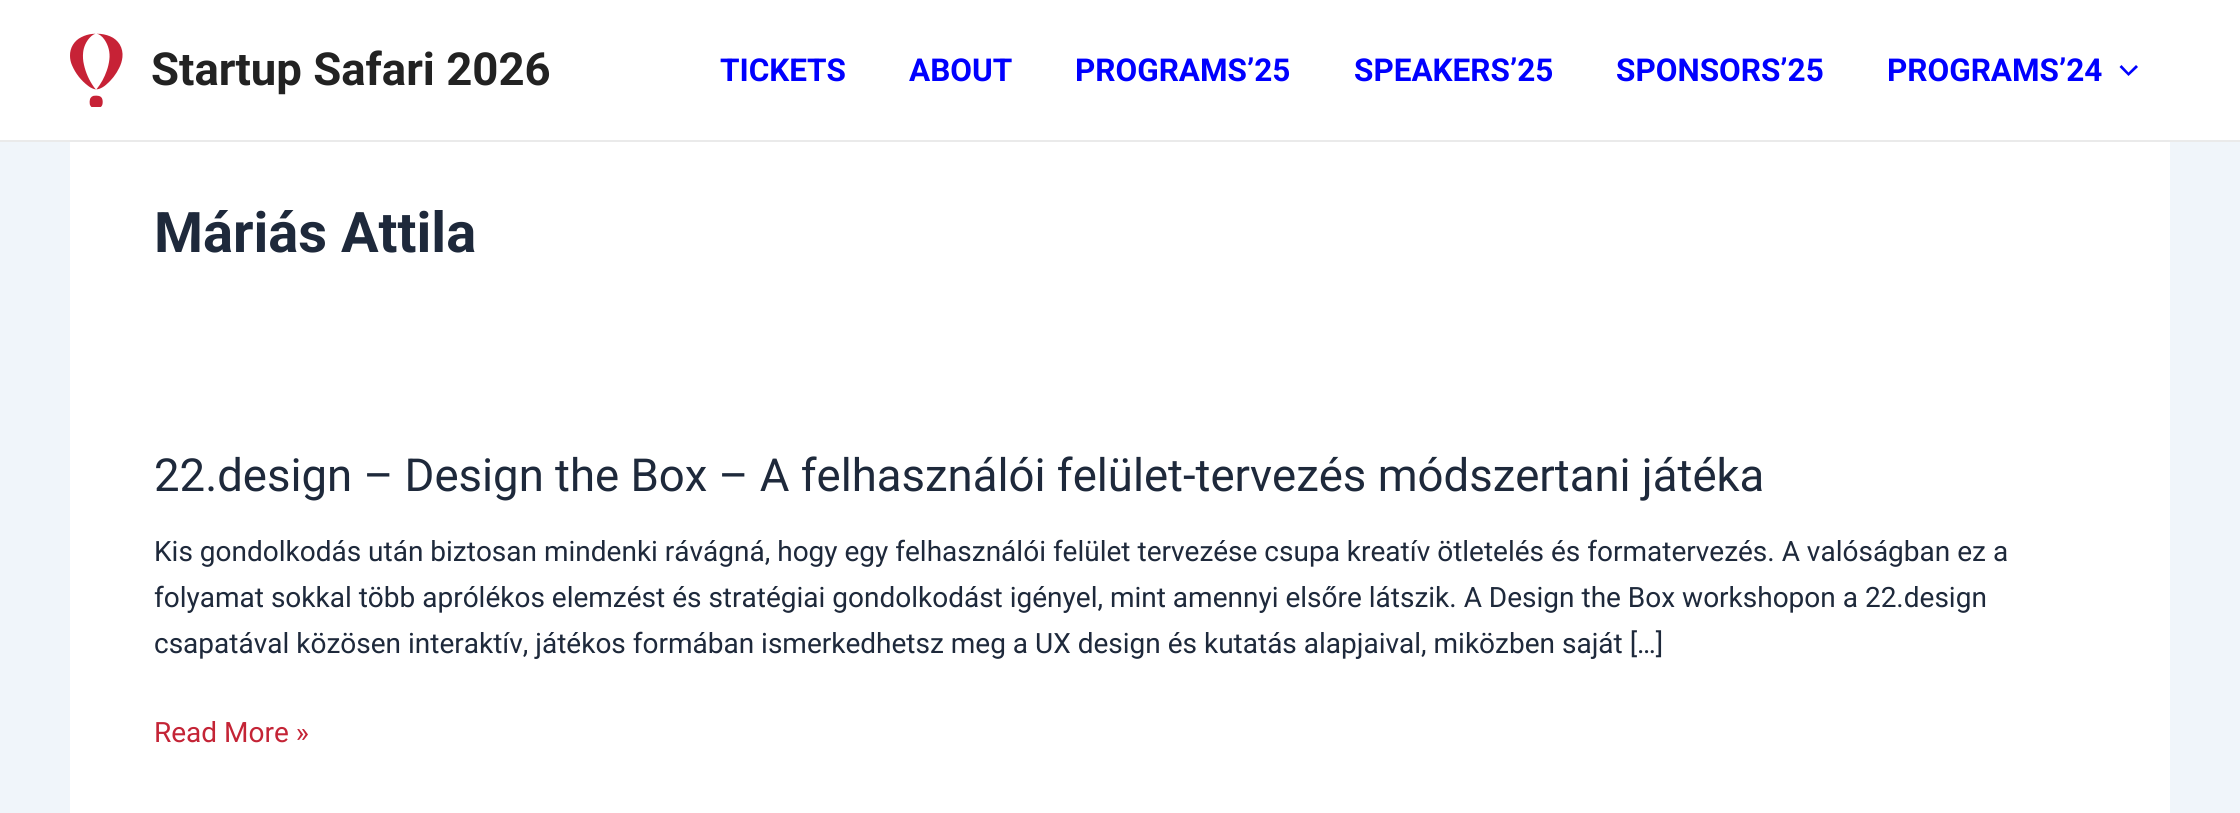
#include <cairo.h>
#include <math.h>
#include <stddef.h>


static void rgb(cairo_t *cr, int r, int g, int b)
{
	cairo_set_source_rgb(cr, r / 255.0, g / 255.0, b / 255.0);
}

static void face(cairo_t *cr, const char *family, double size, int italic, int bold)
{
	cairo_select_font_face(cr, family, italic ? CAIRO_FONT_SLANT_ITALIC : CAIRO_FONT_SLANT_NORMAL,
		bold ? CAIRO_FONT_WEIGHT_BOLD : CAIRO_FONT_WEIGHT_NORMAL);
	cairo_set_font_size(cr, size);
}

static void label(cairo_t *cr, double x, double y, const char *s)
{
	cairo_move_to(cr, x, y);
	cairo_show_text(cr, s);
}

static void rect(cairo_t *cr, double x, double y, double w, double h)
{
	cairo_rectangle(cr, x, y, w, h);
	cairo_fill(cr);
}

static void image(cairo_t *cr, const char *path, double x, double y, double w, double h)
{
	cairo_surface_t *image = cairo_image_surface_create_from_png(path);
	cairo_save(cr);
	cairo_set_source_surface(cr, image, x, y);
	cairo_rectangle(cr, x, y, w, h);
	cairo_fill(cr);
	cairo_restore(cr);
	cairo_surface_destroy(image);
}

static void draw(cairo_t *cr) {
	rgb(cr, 240, 245, 250);
	cairo_paint(cr);
	rgb(cr, 255, 255, 255);
	rect(cr, 0, 0, 2240, 140);
	rgb(cr, 234, 234, 234);
	rect(cr, 0, 140, 2240, 2);
	image(cr, "image0.png", 70, 33, 53, 74);
	face(cr, "Roboto", 45.5, 0, 1);
	rgb(cr, 34, 34, 34);
	label(cr, 151, 85, "Startup Safari 2026");
	face(cr, "Roboto", 31.5, 0, 1);
	rgb(cr, 0, 0, 254);
	label(cr, 720, 81, "TICKETS");
	label(cr, 909, 81, "ABOUT");
	label(cr, 1075, 81, "PROGRAMS’25");
	label(cr, 1354, 81, "SPEAKERS’25");
	label(cr, 1616, 81, "SPONSORS’25");
	label(cr, 1887, 81, "PROGRAMS’24");
	cairo_new_path(cr);
	cairo_move_to(cr, 2119.5, 67);
	cairo_line_to(cr, 2128.5, 76);
	cairo_line_to(cr, 2138, 67);
	cairo_line_to(cr, 2136, 65);
	cairo_line_to(cr, 2128.5, 72.5);
	cairo_line_to(cr, 2121.5, 65);
	cairo_close_path(cr);
	cairo_fill(cr);
	rgb(cr, 255, 255, 255);
	rect(cr, 70, 142, 2100, 671);
	face(cr, "Roboto", 56, 0, 1);
	rgb(cr, 30, 41, 59);
	label(cr, 154, 252, "Máriás Attila");
	face(cr, "Roboto", 45.5, 0, 0);
	label(cr, 154, 491, "22.design – Design the Box – A felhasználói felület-tervezés módszertani játéka");
	face(cr, "Roboto", 28, 0, 0);
	label(cr, 154, 561, "Kis gondolkodás után biztosan mindenki rávágná, hogy egy felhasználói felület tervezése csupa kreatív ötletelés és formatervezés. A valóságban ez a");
	label(cr, 154, 607, "folyamat sokkal több aprólékos elemzést és stratégiai gondolkodást igényel, mint amennyi elsőre látszik. A Design the Box workshopon a 22.design");
	label(cr, 154, 653, "csapatával közösen interaktív, játékos formában ismerkedhetsz meg a UX design és kutatás alapjaival, miközben saját […]");
	rgb(cr, 196, 36, 54);
	label(cr, 154, 742, "Read More »");
}

int main(void) {
	cairo_surface_t *surface = cairo_image_surface_create(CAIRO_FORMAT_RGB24, 2240, 813);
	cairo_t *cr = cairo_create(surface);
	cairo_font_options_t *options = cairo_font_options_create();
	cairo_font_options_set_hint_metrics(options, CAIRO_HINT_METRICS_OFF);
	cairo_font_options_set_hint_style(options, CAIRO_HINT_STYLE_NONE);
	cairo_set_font_options(cr, options);
	cairo_set_miter_limit(cr, 4);
	draw(cr);
	cairo_surface_write_to_png(surface, "render.png");
	cairo_font_options_destroy(options);
	cairo_destroy(cr);
	cairo_surface_destroy(surface);
	return 0;
}
